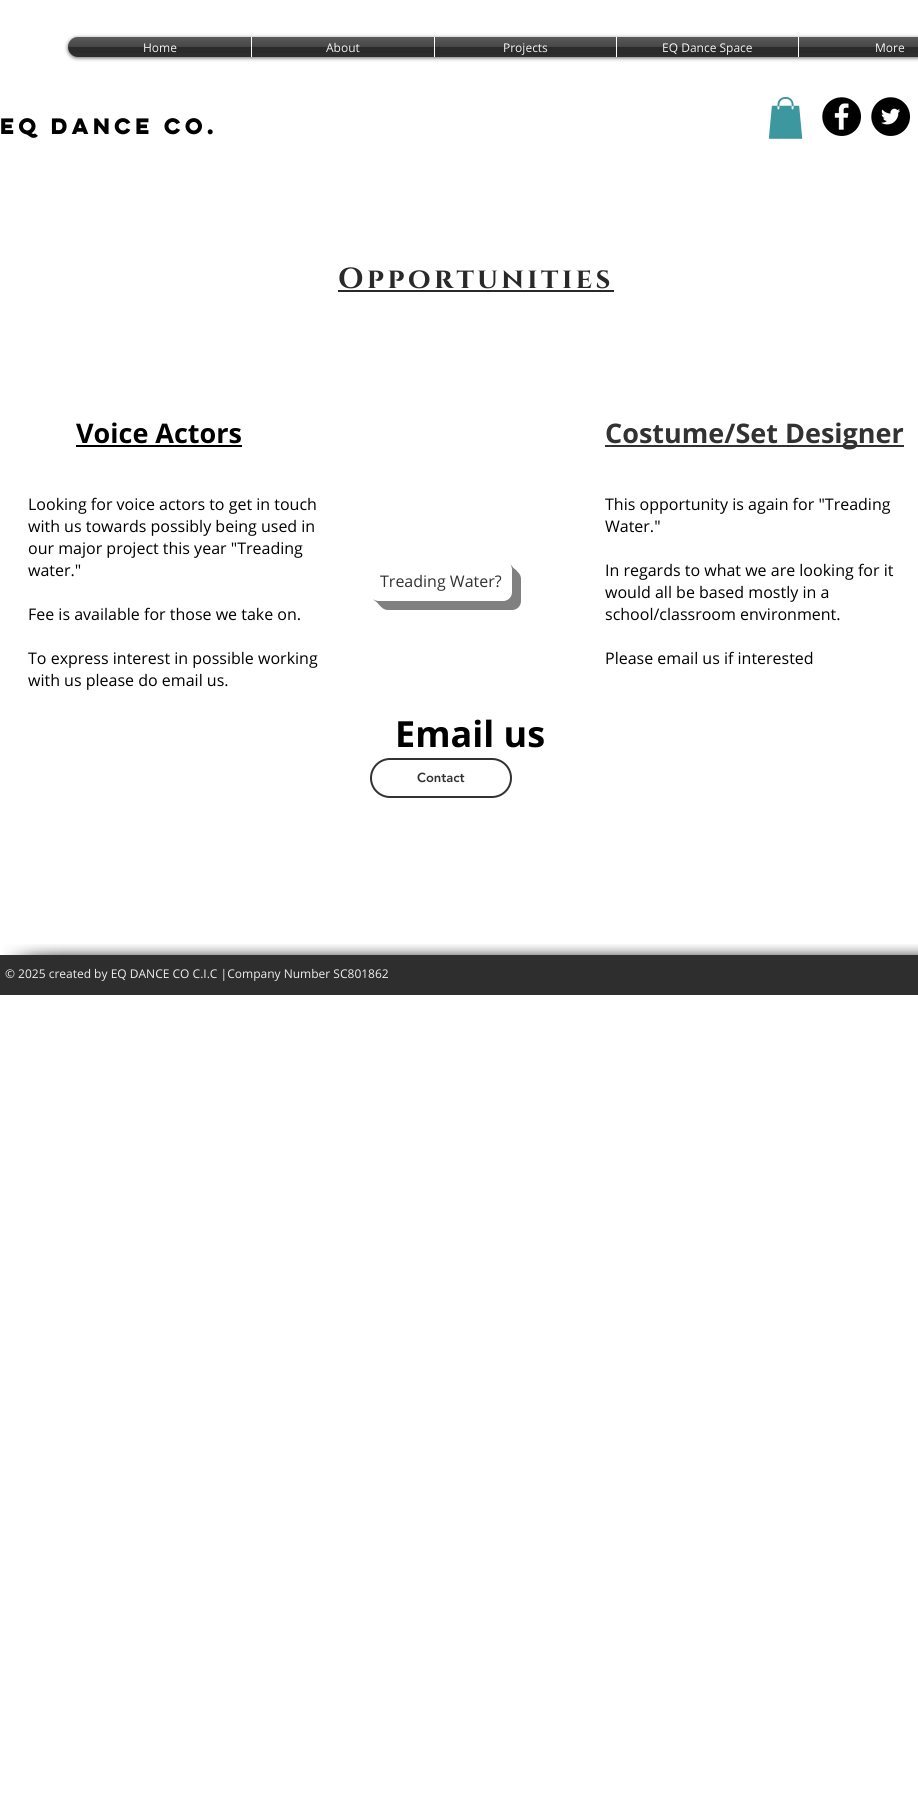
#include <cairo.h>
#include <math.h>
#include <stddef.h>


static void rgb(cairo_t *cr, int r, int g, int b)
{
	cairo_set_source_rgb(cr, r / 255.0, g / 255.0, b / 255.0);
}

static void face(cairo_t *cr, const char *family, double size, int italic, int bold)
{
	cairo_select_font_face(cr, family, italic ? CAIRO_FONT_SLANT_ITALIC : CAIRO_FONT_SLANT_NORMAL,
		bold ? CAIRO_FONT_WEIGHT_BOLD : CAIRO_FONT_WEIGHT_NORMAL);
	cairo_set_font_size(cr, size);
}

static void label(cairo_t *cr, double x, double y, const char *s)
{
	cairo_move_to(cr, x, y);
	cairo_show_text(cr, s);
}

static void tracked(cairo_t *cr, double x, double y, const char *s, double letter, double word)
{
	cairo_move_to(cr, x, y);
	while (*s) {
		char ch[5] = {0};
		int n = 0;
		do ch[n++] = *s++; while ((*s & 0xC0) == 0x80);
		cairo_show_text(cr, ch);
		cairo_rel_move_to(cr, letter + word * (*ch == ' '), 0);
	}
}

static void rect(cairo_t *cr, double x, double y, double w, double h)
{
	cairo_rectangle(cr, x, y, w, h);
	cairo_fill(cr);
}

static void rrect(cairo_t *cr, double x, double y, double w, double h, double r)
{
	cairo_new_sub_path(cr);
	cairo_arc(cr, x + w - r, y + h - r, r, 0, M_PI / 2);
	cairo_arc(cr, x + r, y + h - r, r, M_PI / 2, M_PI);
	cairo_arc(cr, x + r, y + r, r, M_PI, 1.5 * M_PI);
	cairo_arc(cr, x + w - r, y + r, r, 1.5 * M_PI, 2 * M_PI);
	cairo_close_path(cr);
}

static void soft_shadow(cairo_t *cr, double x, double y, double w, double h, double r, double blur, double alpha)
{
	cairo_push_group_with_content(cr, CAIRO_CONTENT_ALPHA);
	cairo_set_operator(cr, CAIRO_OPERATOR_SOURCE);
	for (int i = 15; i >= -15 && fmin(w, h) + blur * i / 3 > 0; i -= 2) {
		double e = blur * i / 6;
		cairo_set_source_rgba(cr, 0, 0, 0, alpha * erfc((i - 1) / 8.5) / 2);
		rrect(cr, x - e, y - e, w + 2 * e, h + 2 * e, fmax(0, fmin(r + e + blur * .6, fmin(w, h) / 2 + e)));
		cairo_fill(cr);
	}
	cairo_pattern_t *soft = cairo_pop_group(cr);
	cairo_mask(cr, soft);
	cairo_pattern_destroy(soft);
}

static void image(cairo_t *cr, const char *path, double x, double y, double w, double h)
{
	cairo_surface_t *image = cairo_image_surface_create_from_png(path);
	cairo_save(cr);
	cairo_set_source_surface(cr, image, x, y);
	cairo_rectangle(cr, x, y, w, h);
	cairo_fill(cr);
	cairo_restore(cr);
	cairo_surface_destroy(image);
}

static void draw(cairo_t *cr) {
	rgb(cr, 255, 255, 255);
	cairo_paint(cr);
	rgb(cr, 0, 0, 0);
	soft_shadow(cr, 68, 38, 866, 20, 10, 2, 0.6);
	image(cr, "image0.png", 68, 37, 10, 10);
	rgb(cr, 47, 46, 46);
	cairo_new_path(cr);
	cairo_move_to(cr, 78, 37);
	cairo_line_to(cr, 251, 37);
	cairo_line_to(cr, 251, 57);
	cairo_line_to(cr, 78, 57);
	cairo_curve_to(cr, 72.5, 57, 68, 52.5, 68, 47);
	cairo_curve_to(cr, 68, 41.5, 72.5, 37, 78, 37);
	cairo_close_path(cr);
	cairo_fill(cr);
	face(cr, "Open Sans", 12, 0, 0);
	rgb(cr, 255, 255, 255);
	label(cr, 143, 52, "Home");
	image(cr, "image1.png", 68, 37, 183, 16);
	rgb(cr, 47, 46, 46);
	rect(cr, 252, 37, 182, 20);
	rgb(cr, 255, 255, 255);
	rect(cr, 251, 37, 1, 20);
	label(cr, 326, 52, "About");
	image(cr, "image2.png", 252, 37, 182, 16);
	rgb(cr, 47, 46, 46);
	rect(cr, 435, 37, 181, 20);
	rgb(cr, 255, 255, 255);
	rect(cr, 434, 37, 1, 20);
	label(cr, 503, 52, "Projects");
	image(cr, "image3.png", 435, 37, 181, 18);
	rgb(cr, 47, 46, 46);
	rect(cr, 617, 37, 181, 20);
	rgb(cr, 255, 255, 255);
	rect(cr, 616, 37, 1, 20);
	label(cr, 662, 52, "EQ Dance Space");
	image(cr, "image4.png", 617, 37, 181, 18);
	rgb(cr, 47, 46, 46);
	rect(cr, 799, 37, 119, 20);
	rgb(cr, 255, 255, 255);
	rect(cr, 798, 37, 1, 20);
	label(cr, 875, 52, "More");
	image(cr, "image5.png", 799, 37, 119, 16);
	face(cr, "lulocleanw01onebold", 20, 0, 1);
	rgb(cr, 0, 0, 0);
	label(cr, 0, 134, "EQ DANCE CO.");
	image(cr, "image6.png", 768, 97, 35, 42);
	image(cr, "image7.png", 822, 97, 39, 39);
	image(cr, "image8.png", 871, 97, 39, 39);
	face(cr, "Cinzel", 29, 0, 1);
	rgb(cr, 41, 41, 41);
	tracked(cr, 338, 288, "Opportunities", 3.5, 0);
	rect(cr, 338, 290, 276, 2);
	face(cr, "Open Sans", 27, 0, 1);
	rgb(cr, 0, 0, 0);
	label(cr, 76, 443, "Voice Actors");
	rect(cr, 76, 445, 166, 2);
	rgb(cr, 50, 50, 50);
	rect(cr, 605, 445, 299, 2);
	label(cr, 605, 443, "Costume/Set Designer");
	face(cr, "Open Sans", 16, 0, 0);
	rgb(cr, 0, 0, 0);
	label(cr, 28, 510, "Looking for voice actors to get in touch");
	label(cr, 28, 532, "with us towards possibly being used in");
	label(cr, 28, 554, "our major project this year \"Treading");
	label(cr, 28, 576, "water.\"");
	label(cr, 28, 620, "Fee is available for those we take on.");
	label(cr, 28, 664, "To express interest in possible working");
	label(cr, 28, 686, "with us please do email us.");
	rgb(cr, 128, 128, 128);
	cairo_new_path(cr);
	cairo_move_to(cr, 379, 601);
	cairo_curve_to(cr, 379, 606, 383, 610, 388, 610);
	cairo_line_to(cr, 512, 610);
	cairo_curve_to(cr, 517, 610, 521, 606, 521, 601);
	cairo_line_to(cr, 521, 579);
	cairo_curve_to(cr, 521, 574, 517, 570, 512, 570);
	cairo_line_to(cr, 512, 592);
	cairo_curve_to(cr, 512, 597, 508, 601, 503, 601);
	cairo_close_path(cr);
	cairo_fill(cr);
	cairo_new_path(cr);
	cairo_move_to(cr, 377, 601);
	cairo_curve_to(cr, 380, 613, 401, 608, 407, 608);
	cairo_line_to(cr, 489, 608);
	cairo_curve_to(cr, 522, 608, 519, 610, 519, 581);
	cairo_curve_to(cr, 519, 575, 518, 569, 512, 568);
	cairo_line_to(cr, 512, 594);
	cairo_curve_to(cr, 509, 606, 488, 601, 482, 601);
	cairo_close_path(cr);
	cairo_fill(cr);
	cairo_new_path(cr);
	cairo_move_to(cr, 376, 600);
	cairo_curve_to(cr, 380, 610, 399, 606, 405, 606);
	cairo_line_to(cr, 487, 606);
	cairo_curve_to(cr, 520, 606, 517, 608, 517, 579);
	cairo_curve_to(cr, 517, 574, 517, 569, 511, 567);
	cairo_line_to(cr, 512, 570);
	cairo_line_to(cr, 512, 592);
	cairo_curve_to(cr, 512, 597, 508, 601, 503, 601);
	cairo_line_to(cr, 379, 601);
	cairo_close_path(cr);
	cairo_fill(cr);
	cairo_new_path(cr);
	cairo_move_to(cr, 374, 600);
	cairo_curve_to(cr, 376, 602, 379, 604, 382, 604);
	cairo_line_to(cr, 506, 604);
	cairo_curve_to(cr, 511, 604, 515, 600, 515, 595);
	cairo_line_to(cr, 515, 573);
	cairo_curve_to(cr, 515, 570, 513, 567, 511, 565);
	cairo_curve_to(cr, 512, 567, 512, 568, 512, 570);
	cairo_line_to(cr, 512, 592);
	cairo_curve_to(cr, 512, 597, 508, 601, 503, 601);
	cairo_line_to(cr, 379, 601);
	cairo_curve_to(cr, 377, 601, 376, 601, 374, 600);
	cairo_close_path(cr);
	cairo_fill(cr);
	cairo_new_path(cr);
	cairo_move_to(cr, 373, 599);
	cairo_curve_to(cr, 375, 601, 377, 602, 380, 602);
	cairo_line_to(cr, 504, 602);
	cairo_curve_to(cr, 509, 602, 513, 598, 513, 593);
	cairo_line_to(cr, 513, 571);
	cairo_curve_to(cr, 513, 568, 512, 566, 510, 564);
	cairo_curve_to(cr, 511, 566, 512, 568, 512, 570);
	cairo_line_to(cr, 512, 592);
	cairo_curve_to(cr, 512, 597, 508, 601, 503, 601);
	cairo_line_to(cr, 379, 601);
	cairo_curve_to(cr, 377, 601, 375, 600, 373, 599);
	cairo_close_path(cr);
	cairo_fill(cr);
	rgb(cr, 255, 255, 255);
	rrect(cr, 370, 561, 142, 40, 9);
	cairo_fill(cr);
	rgb(cr, 50, 50, 50);
	label(cr, 380, 587, "Treading Water?");
	rgb(cr, 0, 0, 0);
	label(cr, 605, 510, "This opportunity is again for \"Treading");
	label(cr, 605, 532, "Water.\"");
	label(cr, 605, 576, "In regards to what we are looking for it");
	label(cr, 605, 598, "would all be based mostly in a");
	label(cr, 605, 620, "school/classroom environment.");
	label(cr, 605, 664, "Please email us if interested");
	face(cr, "Open Sans", 36, 0, 1);
	label(cr, 395, 747, "Email us");
	rrect(cr, 371, 759, 140, 38, 19);
	rgb(cr, 50, 50, 50);
	cairo_stroke(cr);
	face(cr, "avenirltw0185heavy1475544 Black", 13, 0, 0);
	label(cr, 417, 782, "Contact");
	rgb(cr, 47, 46, 46);
	rect(cr, 0, 955, 918, 40);
	image(cr, "image9.png", 3, 944, 97, 11);
	image(cr, "image10.png", 100, 944, 780, 11);
	image(cr, "image11.png", 880, 944, 38, 11);
	face(cr, "Open Sans", 12, 0, 0);
	rgb(cr, 238, 238, 238);
	label(cr, 5, 978, "© 2025 created by EQ DANCE CO C.I.C |Company Number SC801862");
}

int main(void) {
	cairo_surface_t *surface = cairo_image_surface_create(CAIRO_FORMAT_RGB24, 918, 1800);
	cairo_t *cr = cairo_create(surface);
	cairo_font_options_t *options = cairo_font_options_create();
	cairo_font_options_set_hint_metrics(options, CAIRO_HINT_METRICS_OFF);
	cairo_font_options_set_hint_style(options, CAIRO_HINT_STYLE_NONE);
	cairo_set_font_options(cr, options);
	cairo_set_miter_limit(cr, 4);
	draw(cr);
	cairo_surface_write_to_png(surface, "render.png");
	cairo_font_options_destroy(options);
	cairo_destroy(cr);
	cairo_surface_destroy(surface);
	return 0;
}
